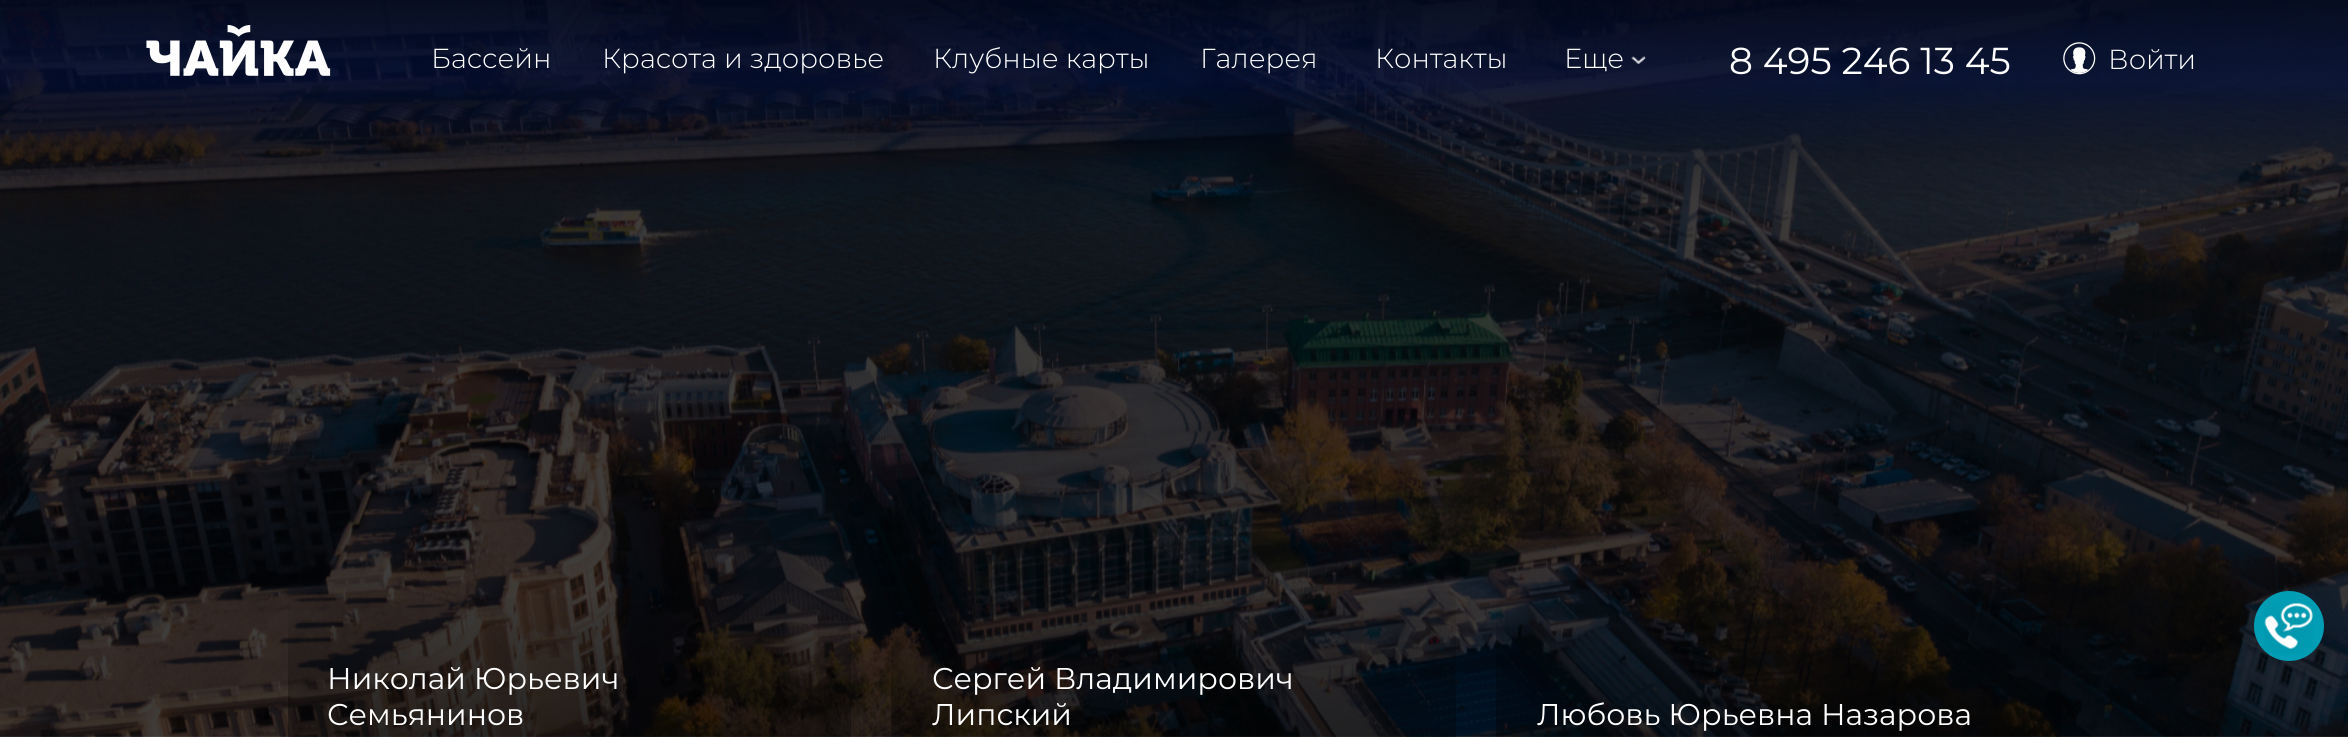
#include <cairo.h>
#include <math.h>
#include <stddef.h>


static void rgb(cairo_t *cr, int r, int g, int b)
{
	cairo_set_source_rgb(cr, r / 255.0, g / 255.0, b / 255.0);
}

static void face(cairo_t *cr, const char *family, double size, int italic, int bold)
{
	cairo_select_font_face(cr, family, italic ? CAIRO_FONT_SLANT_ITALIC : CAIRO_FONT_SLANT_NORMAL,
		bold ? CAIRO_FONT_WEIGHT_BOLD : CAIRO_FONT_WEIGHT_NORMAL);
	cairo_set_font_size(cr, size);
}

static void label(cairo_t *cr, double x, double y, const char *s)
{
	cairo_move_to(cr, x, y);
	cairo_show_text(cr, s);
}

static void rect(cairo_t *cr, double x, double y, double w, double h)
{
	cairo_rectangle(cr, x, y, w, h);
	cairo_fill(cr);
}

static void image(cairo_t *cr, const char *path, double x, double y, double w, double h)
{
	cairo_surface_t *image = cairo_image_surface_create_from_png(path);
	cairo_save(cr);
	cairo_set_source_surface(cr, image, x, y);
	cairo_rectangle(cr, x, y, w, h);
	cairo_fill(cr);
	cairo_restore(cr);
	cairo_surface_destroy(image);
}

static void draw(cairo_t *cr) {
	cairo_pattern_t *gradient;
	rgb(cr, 255, 255, 255);
	cairo_paint(cr);
	image(cr, "image3.png", 0, 0, 2348, 737);
	image(cr, "image0.png", 146, 25, 185, 51);
	face(cr, "Montserrat Light", 27.5, 0, 0);
	rgb(cr, 255, 255, 255);
	label(cr, 431, 68, "Бассейн");
	label(cr, 602, 68, "Красота и здоровье");
	label(cr, 933, 68, "Клубные карты");
	label(cr, 1200, 68, "Галерея");
	label(cr, 1375, 68, "Контакты");
	label(cr, 1564, 68, "Еще");
	image(cr, "image1.png", 1631, 56, 15, 8);
	face(cr, "Montserrat", 37.5, 0, 0);
	label(cr, 1729, 74, "8 495 246 13 45");
	image(cr, "image2.png", 2063, 42, 33, 33);
	face(cr, "Montserrat Light", 27.5, 0, 0);
	label(cr, 2108, 69, "Войти");
	gradient = cairo_pattern_create_linear(569, 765, 569, 581);
	cairo_pattern_add_color_stop_rgba(gradient, 0, 0, 0, 0, 0.44);
	cairo_pattern_add_color_stop_rgba(gradient, 1, 0, 0, 0, 0);
	cairo_set_source(cr, gradient);
	cairo_pattern_destroy(gradient);
	rect(cr, 288, 598, 563, 139);
	face(cr, "Montserrat", 30, 0, 0);
	rgb(cr, 255, 255, 255);
	label(cr, 327, 689, "Николай Юрьевич");
	label(cr, 327, 725, "Семьянинов");
	gradient = cairo_pattern_create_linear(1174, 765, 1174, 581);
	cairo_pattern_add_color_stop_rgba(gradient, 0, 0, 0, 0, 0.44);
	cairo_pattern_add_color_stop_rgba(gradient, 1, 0, 0, 0, 0);
	cairo_set_source(cr, gradient);
	cairo_pattern_destroy(gradient);
	rect(cr, 891, 598, 565, 139);
	rgb(cr, 255, 255, 255);
	label(cr, 932, 689, "Сергей Владимирович");
	label(cr, 932, 725, "Липский");
	gradient = cairo_pattern_create_linear(1779, 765, 1779, 581);
	cairo_pattern_add_color_stop_rgba(gradient, 0, 0, 0, 0, 0.44);
	cairo_pattern_add_color_stop_rgba(gradient, 1, 0, 0, 0, 0);
	cairo_set_source(cr, gradient);
	cairo_pattern_destroy(gradient);
	rect(cr, 1496, 603, 565, 134);
	rgb(cr, 255, 255, 255);
	label(cr, 1537, 725, "Любовь Юрьевна Назарова");
	rgb(cr, 1, 157, 180);
	cairo_new_path(cr);
	cairo_arc(cr, 2289, 626, 35, 0, 2 * M_PI);
	cairo_fill(cr);
	image(cr, "image4.png", 2264, 603, 49, 51);
}

int main(void) {
	cairo_surface_t *surface = cairo_image_surface_create(CAIRO_FORMAT_RGB24, 2348, 737);
	cairo_t *cr = cairo_create(surface);
	cairo_font_options_t *options = cairo_font_options_create();
	cairo_font_options_set_hint_metrics(options, CAIRO_HINT_METRICS_OFF);
	cairo_font_options_set_hint_style(options, CAIRO_HINT_STYLE_NONE);
	cairo_set_font_options(cr, options);
	cairo_set_miter_limit(cr, 4);
	draw(cr);
	cairo_surface_write_to_png(surface, "render.png");
	cairo_font_options_destroy(options);
	cairo_destroy(cr);
	cairo_surface_destroy(surface);
	return 0;
}
